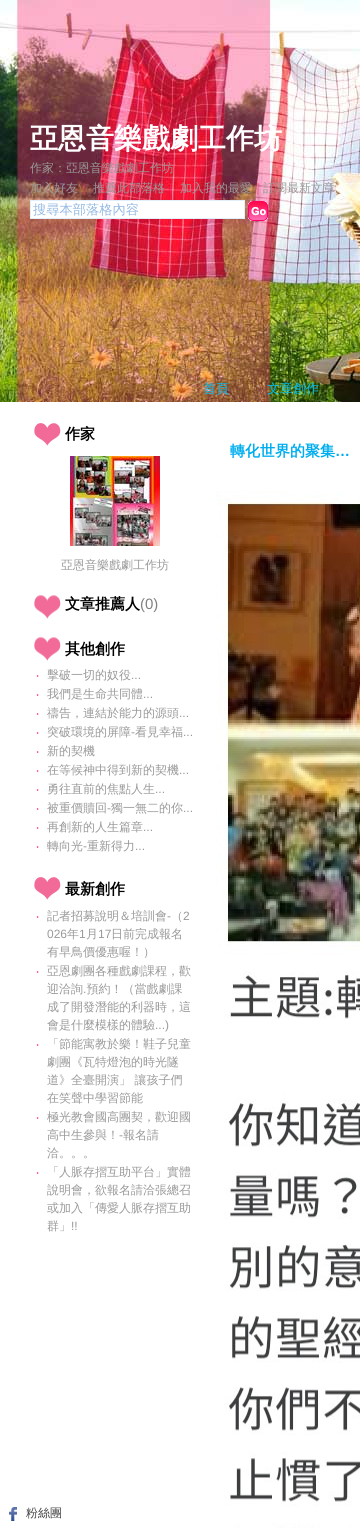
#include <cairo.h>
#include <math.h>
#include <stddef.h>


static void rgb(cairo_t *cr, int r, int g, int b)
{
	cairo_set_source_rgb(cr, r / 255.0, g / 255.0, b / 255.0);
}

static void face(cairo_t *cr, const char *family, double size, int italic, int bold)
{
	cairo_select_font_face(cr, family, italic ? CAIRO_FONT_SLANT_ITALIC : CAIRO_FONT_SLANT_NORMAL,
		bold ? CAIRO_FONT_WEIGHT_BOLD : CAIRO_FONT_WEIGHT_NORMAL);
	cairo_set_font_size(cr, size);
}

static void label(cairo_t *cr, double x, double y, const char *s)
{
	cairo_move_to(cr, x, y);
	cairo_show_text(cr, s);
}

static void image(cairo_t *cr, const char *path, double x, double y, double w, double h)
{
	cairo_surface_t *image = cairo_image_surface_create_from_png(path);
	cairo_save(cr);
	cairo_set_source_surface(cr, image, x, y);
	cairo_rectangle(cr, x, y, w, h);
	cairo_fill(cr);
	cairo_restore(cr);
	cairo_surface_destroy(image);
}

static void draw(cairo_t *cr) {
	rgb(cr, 255, 255, 255);
	cairo_paint(cr);
	image(cr, "image0.png", 0, 0, 360, 402);
	face(cr, "WenQuanYi Zen Hei", 28, 0, 1);
	rgb(cr, 255, 255, 255);
	label(cr, 30, 148, "亞恩音樂戲劇工作坊");
	face(cr, "WenQuanYi Zen Hei Medium", 12, 0, 0);
	rgb(cr, 153, 153, 153);
	label(cr, 30, 172, "作家：亞恩音樂戲劇工作坊");
	label(cr, 30, 192, "加入好友");
	rgb(cr, 252, 45, 115);
	label(cr, 78, 192, "｜");
	rgb(cr, 153, 153, 153);
	label(cr, 93, 192, "推薦此部落格");
	rgb(cr, 252, 45, 115);
	label(cr, 165, 192, "｜");
	rgb(cr, 153, 153, 153);
	label(cr, 180, 192, "加入我的最愛");
	rgb(cr, 252, 45, 115);
	label(cr, 252, 192, "｜");
	rgb(cr, 153, 153, 153);
	label(cr, 263, 192, "訂閱最新文章");
	rgb(cr, 255, 255, 255);
	cairo_rectangle(cr, 30.5, 200.5, 214, 18);
	cairo_fill_preserve(cr);
	rgb(cr, 225, 239, 252);
	cairo_set_line_width(cr, 1);
	cairo_stroke(cr);
	face(cr, "WenQuanYi Zen Hei Medium", 13.25, 0, 0);
	rgb(cr, 148, 185, 226);
	label(cr, 33, 214, "搜尋本部落格內容");
	image(cr, "image1.png", 248, 201, 20, 20);
	face(cr, "WenQuanYi Zen Hei Medium", 13, 0, 0);
	rgb(cr, 0, 191, 243);
	label(cr, 203, 393, "首頁");
	label(cr, 267, 393, "文章創作");
	image(cr, "image2.png", 34, 423, 27, 23);
	face(cr, "WenQuanYi Zen Hei", 15, 0, 1);
	rgb(cr, 0, 0, 0);
	label(cr, 65, 439, "作家");
	image(cr, "image3.png", 70, 456, 90, 90);
	face(cr, "WenQuanYi Zen Hei Medium", 12, 0, 0);
	rgb(cr, 153, 153, 153);
	label(cr, 61, 569, "亞恩音樂戲劇工作坊");
	image(cr, "image4.png", 34, 595, 27, 24);
	face(cr, "WenQuanYi Zen Hei", 15, 0, 1);
	rgb(cr, 0, 0, 0);
	label(cr, 65, 609, "文章推薦人");
	face(cr, "Liberation Sans", 15, 0, 0);
	rgb(cr, 128, 128, 128);
	label(cr, 140, 609, "(0)");
	image(cr, "image4.png", 34, 637, 27, 24);
	face(cr, "WenQuanYi Zen Hei", 15, 0, 1);
	rgb(cr, 0, 0, 0);
	label(cr, 65, 654, "其他創作");
	face(cr, "Noto Sans", 12, 0, 0);
	rgb(cr, 252, 45, 115);
	label(cr, 36, 679, "‧");
	face(cr, "WenQuanYi Zen Hei Medium", 12, 0, 0);
	rgb(cr, 153, 153, 153);
	label(cr, 47, 679, "擊破一切的奴役");
	face(cr, "Liberation Sans", 12, 0, 0);
	label(cr, 131, 679, "...");
	face(cr, "Noto Sans", 12, 0, 0);
	rgb(cr, 252, 45, 115);
	label(cr, 36, 698, "‧");
	face(cr, "WenQuanYi Zen Hei Medium", 12, 0, 0);
	rgb(cr, 153, 153, 153);
	label(cr, 47, 698, "我們是生命共同體");
	face(cr, "Liberation Sans", 12, 0, 0);
	label(cr, 143, 698, "...");
	face(cr, "Noto Sans", 12, 0, 0);
	rgb(cr, 252, 45, 115);
	label(cr, 36, 717, "‧");
	face(cr, "WenQuanYi Zen Hei Medium", 12, 0, 0);
	rgb(cr, 153, 153, 153);
	label(cr, 47, 717, "禱告，連結於能力的源頭");
	face(cr, "Liberation Sans", 12, 0, 0);
	label(cr, 179, 717, "...");
	face(cr, "Noto Sans", 12, 0, 0);
	rgb(cr, 252, 45, 115);
	label(cr, 36, 736, "‧");
	face(cr, "WenQuanYi Zen Hei Medium", 12, 0, 0);
	rgb(cr, 153, 153, 153);
	label(cr, 47, 736, "突破環境的屏障");
	face(cr, "Liberation Sans", 12, 0, 0);
	label(cr, 131, 736, "-");
	face(cr, "WenQuanYi Zen Hei Medium", 12, 0, 0);
	label(cr, 135, 736, "看見幸福");
	face(cr, "Liberation Sans", 12, 0, 0);
	label(cr, 183, 736, "...");
	face(cr, "Noto Sans", 12, 0, 0);
	rgb(cr, 252, 45, 115);
	label(cr, 36, 755, "‧");
	face(cr, "WenQuanYi Zen Hei Medium", 12, 0, 0);
	rgb(cr, 153, 153, 153);
	label(cr, 47, 755, "新的契機");
	face(cr, "Noto Sans", 12, 0, 0);
	rgb(cr, 252, 45, 115);
	label(cr, 36, 774, "‧");
	face(cr, "WenQuanYi Zen Hei Medium", 12, 0, 0);
	rgb(cr, 153, 153, 153);
	label(cr, 47, 774, "在等候神中得到新的契機");
	face(cr, "Liberation Sans", 12, 0, 0);
	label(cr, 179, 774, "...");
	face(cr, "Noto Sans", 12, 0, 0);
	rgb(cr, 252, 45, 115);
	label(cr, 36, 793, "‧");
	face(cr, "WenQuanYi Zen Hei Medium", 12, 0, 0);
	rgb(cr, 153, 153, 153);
	label(cr, 47, 793, "勇往直前的焦點人生");
	face(cr, "Liberation Sans", 12, 0, 0);
	label(cr, 155, 793, "...");
	face(cr, "Noto Sans", 12, 0, 0);
	rgb(cr, 252, 45, 115);
	label(cr, 36, 812, "‧");
	face(cr, "WenQuanYi Zen Hei Medium", 12, 0, 0);
	rgb(cr, 153, 153, 153);
	label(cr, 47, 812, "被重價贖回");
	face(cr, "Liberation Sans", 12, 0, 0);
	label(cr, 107, 812, "-");
	face(cr, "WenQuanYi Zen Hei Medium", 12, 0, 0);
	label(cr, 111, 812, "獨一無二的你");
	face(cr, "Liberation Sans", 12, 0, 0);
	label(cr, 183, 812, "...");
	face(cr, "Noto Sans", 12, 0, 0);
	rgb(cr, 252, 45, 115);
	label(cr, 36, 831, "‧");
	face(cr, "WenQuanYi Zen Hei Medium", 12, 0, 0);
	rgb(cr, 153, 153, 153);
	label(cr, 47, 831, "再創新的人生篇章");
	face(cr, "Liberation Sans", 12, 0, 0);
	label(cr, 143, 831, "...");
	face(cr, "Noto Sans", 12, 0, 0);
	rgb(cr, 252, 45, 115);
	label(cr, 36, 850, "‧");
	face(cr, "WenQuanYi Zen Hei Medium", 12, 0, 0);
	rgb(cr, 153, 153, 153);
	label(cr, 47, 850, "轉向光");
	face(cr, "Liberation Sans", 12, 0, 0);
	label(cr, 83, 850, "-");
	face(cr, "WenQuanYi Zen Hei Medium", 12, 0, 0);
	label(cr, 87, 850, "重新得力");
	face(cr, "Liberation Sans", 12, 0, 0);
	label(cr, 135, 850, "...");
	image(cr, "image2.png", 34, 877, 27, 23);
	face(cr, "WenQuanYi Zen Hei", 15, 0, 1);
	rgb(cr, 0, 0, 0);
	label(cr, 65, 894, "最新創作");
	face(cr, "Noto Sans", 12, 0, 0);
	rgb(cr, 252, 45, 115);
	label(cr, 36, 920, "‧");
	face(cr, "WenQuanYi Zen Hei Medium", 12, 0, 0);
	rgb(cr, 153, 153, 153);
	label(cr, 47, 920, "記者招募說明＆培訓會");
	face(cr, "Liberation Sans", 12, 0, 0);
	label(cr, 167, 920, "-");
	face(cr, "WenQuanYi Zen Hei Medium", 12, 0, 0);
	label(cr, 171, 920, "（");
	face(cr, "Liberation Sans", 12, 0, 0);
	label(cr, 183, 920, "2");
	label(cr, 47, 938, "026");
	face(cr, "WenQuanYi Zen Hei Medium", 12, 0, 0);
	label(cr, 67, 938, "年");
	face(cr, "Liberation Sans", 12, 0, 0);
	label(cr, 79, 938, "1");
	face(cr, "WenQuanYi Zen Hei Medium", 12, 0, 0);
	label(cr, 86, 938, "月");
	face(cr, "Liberation Sans", 12, 0, 0);
	label(cr, 98, 938, "17");
	face(cr, "WenQuanYi Zen Hei Medium", 12, 0, 0);
	label(cr, 111, 938, "日前完成報名");
	label(cr, 47, 956, "有早鳥價優惠喔！）");
	face(cr, "Noto Sans", 12, 0, 0);
	rgb(cr, 252, 45, 115);
	label(cr, 36, 975, "‧");
	face(cr, "WenQuanYi Zen Hei Medium", 12, 0, 0);
	rgb(cr, 153, 153, 153);
	label(cr, 47, 975, "亞恩劇團各種戲劇課程，歡");
	label(cr, 47, 993, "迎洽詢 預約！（當戲劇課");
	face(cr, "Liberation Sans", 12, 0, 0);
	label(cr, 83, 993, ".");
	face(cr, "WenQuanYi Zen Hei Medium", 12, 0, 0);
	label(cr, 47, 1011, "成了開發潛能的利器時，這");
	label(cr, 47, 1029, "會是什麼模樣的體驗");
	face(cr, "Liberation Sans", 12, 0, 0);
	label(cr, 155, 1029, "...)");
	face(cr, "Noto Sans", 12, 0, 0);
	rgb(cr, 252, 45, 115);
	label(cr, 36, 1048, "‧");
	face(cr, "WenQuanYi Zen Hei Medium", 12, 0, 0);
	rgb(cr, 153, 153, 153);
	label(cr, 47, 1048, "「節能寓教於樂！鞋子兒童");
	label(cr, 47, 1066, "劇團《瓦特燈泡的時光隧");
	label(cr, 47, 1084, "道》全臺開演」 讓孩子們");
	label(cr, 47, 1102, "在笑聲中學習節能");
	face(cr, "Noto Sans", 12, 0, 0);
	rgb(cr, 252, 45, 115);
	label(cr, 36, 1121, "‧");
	face(cr, "WenQuanYi Zen Hei Medium", 12, 0, 0);
	rgb(cr, 153, 153, 153);
	label(cr, 47, 1121, "極光教會國高團契，歡迎國");
	label(cr, 47, 1139, "高中生參與！");
	face(cr, "Liberation Sans", 12, 0, 0);
	label(cr, 119, 1139, "-");
	face(cr, "WenQuanYi Zen Hei Medium", 12, 0, 0);
	label(cr, 123, 1139, "報名請");
	label(cr, 47, 1157, "洽。。。");
	face(cr, "Noto Sans", 12, 0, 0);
	rgb(cr, 252, 45, 115);
	label(cr, 36, 1176, "‧");
	face(cr, "WenQuanYi Zen Hei Medium", 12, 0, 0);
	rgb(cr, 153, 153, 153);
	label(cr, 47, 1176, "「人脈存摺互助平台」實體");
	label(cr, 47, 1194, "說明會，欲報名請洽張總召");
	label(cr, 47, 1212, "或加入「傳愛人脈存摺互助");
	label(cr, 47, 1230, "群」");
	face(cr, "Liberation Sans", 12, 0, 0);
	label(cr, 71, 1230, "!!");
	face(cr, "WenQuanYi Zen Hei", 15, 0, 1);
	rgb(cr, 0, 174, 239);
	label(cr, 230, 456, "轉化世界的聚集");
	face(cr, "Liberation Sans", 15, 0, 1);
	label(cr, 335, 456, "…");
	image(cr, "image5.png", 216, 491, 144, 1037);
	image(cr, "image6.png", 9, 1507, 8, 14);
	face(cr, "WenQuanYi Zen Hei Medium", 12, 0, 0);
	rgb(cr, 68, 68, 68);
	label(cr, 26, 1517, "粉絲團");
}

int main(void) {
	cairo_surface_t *surface = cairo_image_surface_create(CAIRO_FORMAT_RGB24, 360, 1528);
	cairo_t *cr = cairo_create(surface);
	cairo_font_options_t *options = cairo_font_options_create();
	cairo_font_options_set_hint_metrics(options, CAIRO_HINT_METRICS_OFF);
	cairo_font_options_set_hint_style(options, CAIRO_HINT_STYLE_NONE);
	cairo_set_font_options(cr, options);
	cairo_set_miter_limit(cr, 4);
	draw(cr);
	cairo_surface_write_to_png(surface, "render.png");
	cairo_font_options_destroy(options);
	cairo_destroy(cr);
	cairo_surface_destroy(surface);
	return 0;
}
